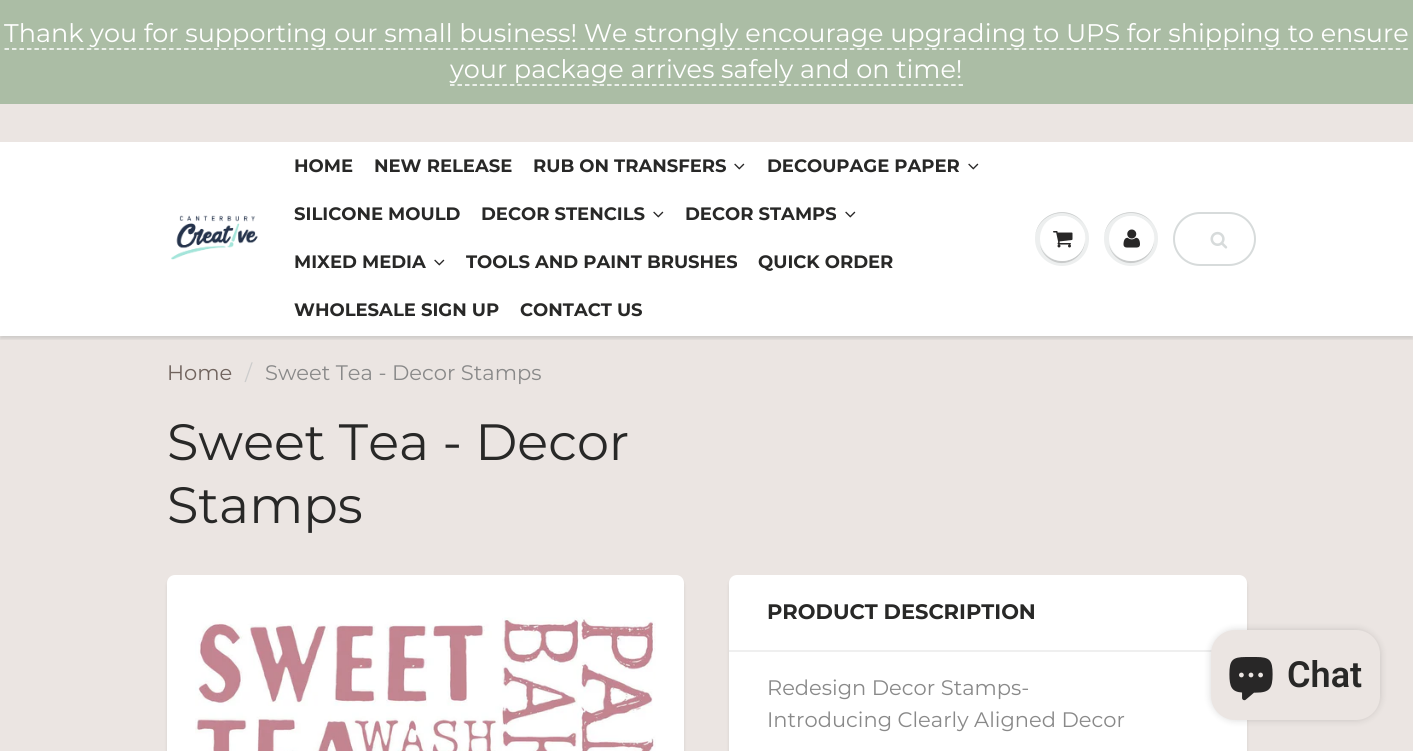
#include <cairo.h>
#include <math.h>
#include <stddef.h>


static void rgb(cairo_t *cr, int r, int g, int b)
{
	cairo_set_source_rgb(cr, r / 255.0, g / 255.0, b / 255.0);
}

static void face(cairo_t *cr, const char *family, double size, int italic, int bold)
{
	cairo_select_font_face(cr, family, italic ? CAIRO_FONT_SLANT_ITALIC : CAIRO_FONT_SLANT_NORMAL,
		bold ? CAIRO_FONT_WEIGHT_BOLD : CAIRO_FONT_WEIGHT_NORMAL);
	cairo_set_font_size(cr, size);
}

static void label(cairo_t *cr, double x, double y, const char *s)
{
	cairo_move_to(cr, x, y);
	cairo_show_text(cr, s);
}

static void rect(cairo_t *cr, double x, double y, double w, double h)
{
	cairo_rectangle(cr, x, y, w, h);
	cairo_fill(cr);
}

static void rrect(cairo_t *cr, double x, double y, double w, double h, double r)
{
	cairo_new_sub_path(cr);
	cairo_arc(cr, x + w - r, y + h - r, r, 0, M_PI / 2);
	cairo_arc(cr, x + r, y + h - r, r, M_PI / 2, M_PI);
	cairo_arc(cr, x + r, y + r, r, M_PI, 1.5 * M_PI);
	cairo_arc(cr, x + w - r, y + r, r, 1.5 * M_PI, 2 * M_PI);
	cairo_close_path(cr);
}

static void soft_shadow(cairo_t *cr, double x, double y, double w, double h, double r, double blur, double alpha)
{
	cairo_push_group_with_content(cr, CAIRO_CONTENT_ALPHA);
	cairo_set_operator(cr, CAIRO_OPERATOR_SOURCE);
	for (int i = 15; i >= -15 && fmin(w, h) + blur * i / 3 > 0; i -= 2) {
		double e = blur * i / 6;
		cairo_set_source_rgba(cr, 0, 0, 0, alpha * erfc((i - 1) / 8.5) / 2);
		rrect(cr, x - e, y - e, w + 2 * e, h + 2 * e, fmax(0, fmin(r + e + blur * .6, fmin(w, h) / 2 + e)));
		cairo_fill(cr);
	}
	cairo_pattern_t *soft = cairo_pop_group(cr);
	cairo_mask(cr, soft);
	cairo_pattern_destroy(soft);
}

static void image(cairo_t *cr, const char *path, double x, double y, double w, double h)
{
	cairo_surface_t *image = cairo_image_surface_create_from_png(path);
	cairo_save(cr);
	cairo_set_source_surface(cr, image, x, y);
	cairo_rectangle(cr, x, y, w, h);
	cairo_fill(cr);
	cairo_restore(cr);
	cairo_surface_destroy(image);
}

static void draw(cairo_t *cr) {
	rgb(cr, 255, 255, 255);
	cairo_paint(cr);
	rgb(cr, 171, 189, 165);
	rect(cr, 0, 0, 1413, 104);
	face(cr, "Montserrat", 25.5, 0, 0);
	rgb(cr, 255, 255, 255);
	label(cr, 4, 42, "Thank you for supporting our small business! We strongly encourage upgrading to UPS for shipping to ensure");
	cairo_new_path(cr);
	cairo_move_to(cr, 4.5, 49);
	cairo_line_to(cr, 1408.5, 49);
	cairo_set_line_width(cr, 1.5);
	cairo_set_dash(cr, (double[]){4.5, 2.98}, 2, 0);
	cairo_stroke(cr);
	label(cr, 450, 78, "your package arrives safely and on time!");
	cairo_new_path(cr);
	cairo_move_to(cr, 450, 85);
	cairo_line_to(cr, 963, 85);
	cairo_stroke(cr);
	rgb(cr, 235, 229, 226);
	rect(cr, 0, 104, 1413, 36);
	rect(cr, 0, 336, 1413, 415);
	cairo_save(cr);
	cairo_rectangle(cr, 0, 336, 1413, 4);
	cairo_clip(cr);
	rgb(cr, 11, 25, 28);
	soft_shadow(cr, 0, 143, 1413, 196, 0, 1.5, 0.12);
	cairo_restore(cr);
	rect(cr, 0, 140, 1413, 2);
	image(cr, "image0.png", 171, 215, 87, 45);
	face(cr, "Montserrat", 18, 0, 1);
	rgb(cr, 40, 40, 39);
	label(cr, 294, 172, "HOME");
	label(cr, 374, 172, "NEW RELEASE");
	label(cr, 533, 172, "RUB ON TRANSFERS");
	image(cr, "image1.png", 734, 163, 11, 7);
	label(cr, 767, 172, "DECOUPAGE PAPER");
	image(cr, "image1.png", 968, 163, 11, 7);
	label(cr, 294, 220, "SILICONE MOULD");
	label(cr, 481, 220, "DECOR STENCILS");
	image(cr, "image1.png", 653, 211, 11, 7);
	label(cr, 685, 220, "DECOR STAMPS");
	image(cr, "image1.png", 845, 211, 11, 7);
	label(cr, 294, 268, "MIXED MEDIA");
	image(cr, "image1.png", 434, 259, 11, 7);
	label(cr, 466, 268, "TOOLS AND PAINT BRUSHES");
	label(cr, 758, 268, "QUICK ORDER");
	label(cr, 294, 316, "WHOLESALE SIGN UP");
	label(cr, 520, 316, "CONTACT US");
	rgb(cr, 237, 239, 239);
	cairo_new_path(cr);
	cairo_arc(cr, 1062, 239, 27, 0, 2 * M_PI);
	cairo_fill(cr);
	rgb(cr, 201, 203, 203);
	cairo_new_path(cr);
	cairo_move_to(cr, 1062, 213);
	cairo_curve_to(cr, 1077, 213, 1089, 225, 1089, 239);
	cairo_curve_to(cr, 1089, 234, 1087, 228, 1084, 224);
	cairo_curve_to(cr, 1069, 202, 1035, 213, 1035, 239);
	cairo_curve_to(cr, 1035, 225, 1047, 213, 1062, 213);
	cairo_close_path(cr);
	cairo_fill(cr);
	cairo_new_path(cr);
	cairo_move_to(cr, 1040, 245);
	cairo_curve_to(cr, 1041, 250, 1044, 255, 1048, 258);
	cairo_curve_to(cr, 1065, 272, 1090, 255, 1084, 234);
	cairo_curve_to(cr, 1090, 262, 1049, 272, 1040, 245);
	cairo_close_path(cr);
	cairo_fill(cr);
	rgb(cr, 255, 255, 255);
	cairo_arc(cr, 1062.5, 238.5, 22.5, 0, 2 * M_PI);
	cairo_fill(cr);
	cairo_new_path(cr);
	cairo_move_to(cr, 1062, 218);
	cairo_curve_to(cr, 1080, 218, 1087, 233, 1084, 246);
	cairo_curve_to(cr, 1093, 218, 1052, 203, 1041, 231);
	cairo_curve_to(cr, 1044, 224, 1051, 218, 1062, 218);
	cairo_close_path(cr);
	cairo_fill(cr);
	image(cr, "image2.png", 1053, 231, 20, 17);
	rgb(cr, 237, 239, 239);
	cairo_arc(cr, 1131, 239, 27, 0, 2 * M_PI);
	cairo_fill(cr);
	rgb(cr, 201, 203, 203);
	cairo_new_path(cr);
	cairo_move_to(cr, 1131, 213);
	cairo_curve_to(cr, 1146, 213, 1158, 225, 1158, 239);
	cairo_curve_to(cr, 1158, 234, 1156, 228, 1153, 224);
	cairo_curve_to(cr, 1138, 202, 1104, 213, 1104, 239);
	cairo_curve_to(cr, 1104, 225, 1116, 213, 1131, 213);
	cairo_close_path(cr);
	cairo_fill(cr);
	cairo_new_path(cr);
	cairo_move_to(cr, 1109, 245);
	cairo_curve_to(cr, 1110, 250, 1113, 255, 1117, 258);
	cairo_curve_to(cr, 1134, 272, 1159, 255, 1153, 234);
	cairo_curve_to(cr, 1159, 262, 1118, 272, 1109, 245);
	cairo_close_path(cr);
	cairo_fill(cr);
	rgb(cr, 255, 255, 255);
	cairo_arc(cr, 1131.5, 238.5, 22.5, 0, 2 * M_PI);
	cairo_fill(cr);
	cairo_new_path(cr);
	cairo_move_to(cr, 1131, 218);
	cairo_curve_to(cr, 1149, 218, 1156, 233, 1153, 246);
	cairo_curve_to(cr, 1162, 218, 1121, 203, 1110, 231);
	cairo_curve_to(cr, 1113, 224, 1120, 218, 1131, 218);
	cairo_close_path(cr);
	cairo_fill(cr);
	image(cr, "image3.png", 1123, 229, 17, 19);
	rrect(cr, 1174, 213, 81, 52, 26);
	rgb(cr, 215, 219, 219);
	cairo_set_line_width(cr, 2);
	cairo_set_dash(cr, NULL, 0, 0);
	cairo_stroke(cr);
	image(cr, "image4.png", 1210, 231, 18, 18);
	face(cr, "Montserrat", 21, 0, 0);
	rgb(cr, 112, 99, 93);
	label(cr, 167, 380, "Home");
	rgb(cr, 204, 204, 204);
	label(cr, 245, 380, "/");
	rgb(cr, 137, 137, 137);
	label(cr, 265, 380, "Sweet Tea - Decor Stamps");
	face(cr, "Montserrat", 51, 0, 0);
	rgb(cr, 40, 40, 39);
	label(cr, 167, 460, "Sweet Tea - Decor");
	label(cr, 167, 523, "Stamps");
	rgb(cr, 11, 25, 28);
	soft_shadow(cr, 167, 578, 517, 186, 8, 1.5, 0.1);
	rgb(cr, 255, 255, 255);
	rrect(cr, 167, 575, 517, 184, 8);
	cairo_fill(cr);
	image(cr, "image5.png", 195, 617, 461, 134);
	rgb(cr, 11, 25, 28);
	soft_shadow(cr, 729, 578, 518, 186, 8, 1.5, 0.1);
	rgb(cr, 255, 255, 255);
	rrect(cr, 729, 575, 518, 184, 8);
	cairo_fill(cr);
	rgb(cr, 239, 239, 239);
	rect(cr, 729, 650, 483, 2);
	face(cr, "Montserrat", 21, 0, 1);
	rgb(cr, 40, 40, 39);
	label(cr, 767, 619, "PRODUCT DESCRIPTION");
	face(cr, "Montserrat", 21, 0, 0);
	rgb(cr, 137, 137, 137);
	label(cr, 767, 695, "Redesign Decor Stamps-");
	label(cr, 767, 727, "Introducing Clearly Aligned Decor");
	rgb(cr, 0, 0, 0);
	soft_shadow(cr, 1211, 630, 169, 90, 24, 4, 0.15);
	rgb(cr, 235, 229, 226);
	rrect(cr, 1211, 630, 169, 90, 24);
	cairo_fill(cr);
	image(cr, "image6.png", 1229, 657, 44, 44);
	face(cr, "Roboto SemiBold", 36, 0, 0);
	rgb(cr, 40, 40, 39);
	label(cr, 1287, 687, "Chat");
}

int main(void) {
	cairo_surface_t *surface = cairo_image_surface_create(CAIRO_FORMAT_RGB24, 1413, 751);
	cairo_t *cr = cairo_create(surface);
	cairo_font_options_t *options = cairo_font_options_create();
	cairo_font_options_set_hint_metrics(options, CAIRO_HINT_METRICS_OFF);
	cairo_font_options_set_hint_style(options, CAIRO_HINT_STYLE_NONE);
	cairo_set_font_options(cr, options);
	cairo_set_miter_limit(cr, 4);
	draw(cr);
	cairo_surface_write_to_png(surface, "render.png");
	cairo_font_options_destroy(options);
	cairo_destroy(cr);
	cairo_surface_destroy(surface);
	return 0;
}
